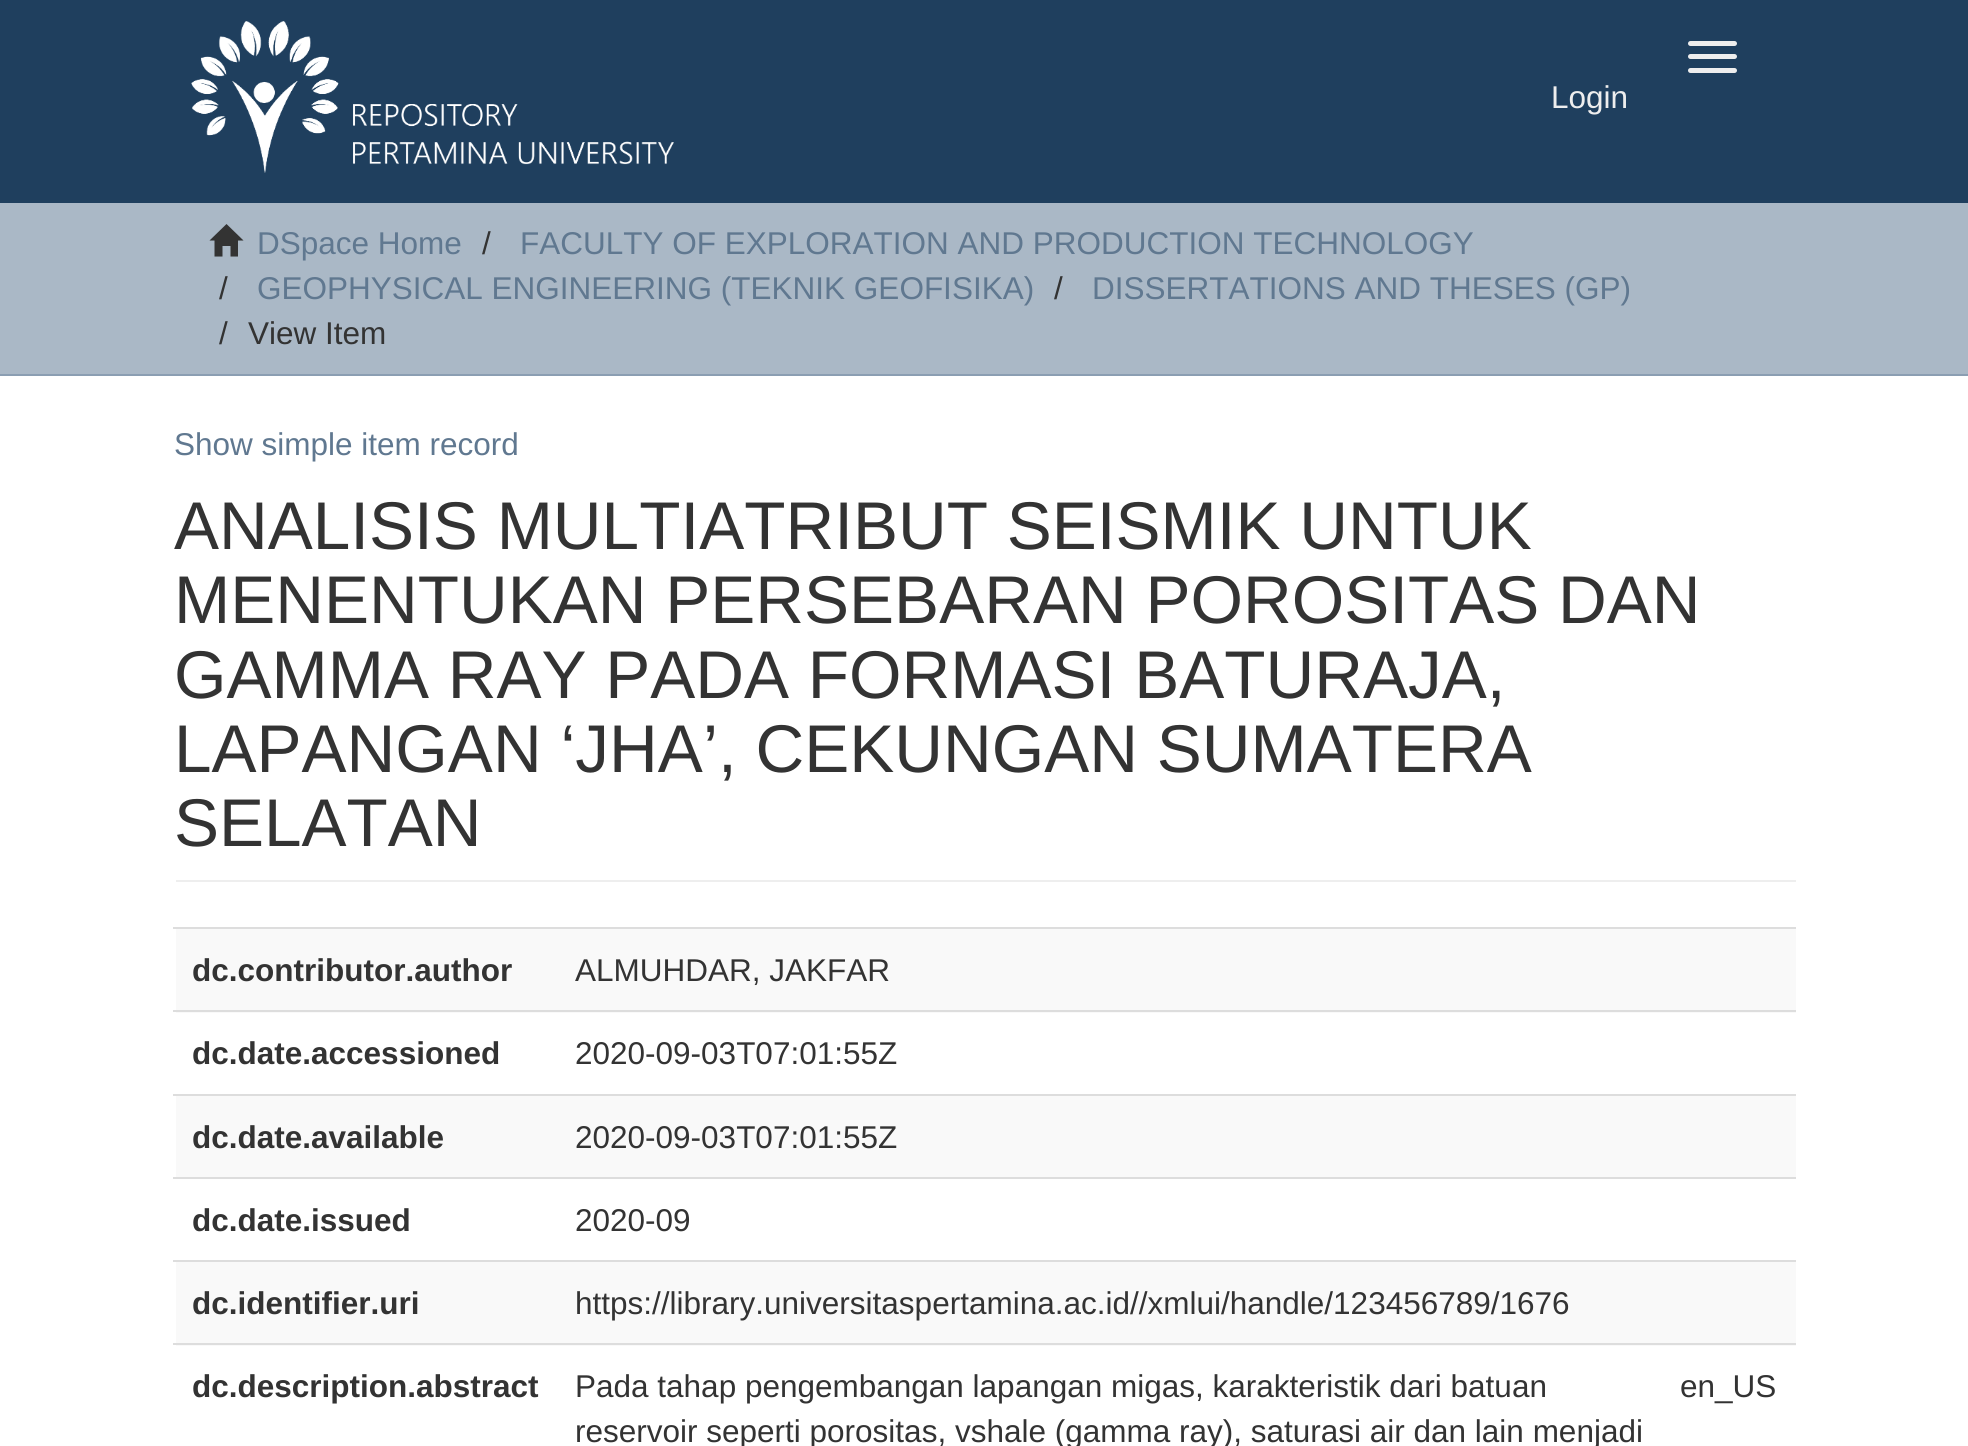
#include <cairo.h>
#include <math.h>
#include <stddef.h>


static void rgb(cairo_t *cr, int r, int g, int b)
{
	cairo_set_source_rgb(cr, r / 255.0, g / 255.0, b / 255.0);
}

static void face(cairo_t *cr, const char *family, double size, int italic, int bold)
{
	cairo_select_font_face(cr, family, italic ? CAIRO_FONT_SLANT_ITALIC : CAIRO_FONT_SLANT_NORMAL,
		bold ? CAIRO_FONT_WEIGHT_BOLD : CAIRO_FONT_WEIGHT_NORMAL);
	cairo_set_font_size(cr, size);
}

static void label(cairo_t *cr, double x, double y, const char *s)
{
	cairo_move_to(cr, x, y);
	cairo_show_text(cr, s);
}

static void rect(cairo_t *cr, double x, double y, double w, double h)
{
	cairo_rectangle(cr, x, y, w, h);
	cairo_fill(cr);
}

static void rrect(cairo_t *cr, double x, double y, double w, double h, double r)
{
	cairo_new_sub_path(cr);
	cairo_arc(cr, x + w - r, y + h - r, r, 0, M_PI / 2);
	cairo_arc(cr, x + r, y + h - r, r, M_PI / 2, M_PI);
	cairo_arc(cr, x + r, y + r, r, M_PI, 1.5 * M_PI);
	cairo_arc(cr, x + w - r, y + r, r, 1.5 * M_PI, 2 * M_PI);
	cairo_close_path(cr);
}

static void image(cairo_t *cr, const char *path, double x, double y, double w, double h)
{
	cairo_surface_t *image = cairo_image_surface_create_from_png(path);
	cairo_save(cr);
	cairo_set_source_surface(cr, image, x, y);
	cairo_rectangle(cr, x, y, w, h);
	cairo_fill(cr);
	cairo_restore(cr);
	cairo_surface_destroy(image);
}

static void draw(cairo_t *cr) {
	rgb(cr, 255, 255, 255);
	cairo_paint(cr);
	rgb(cr, 31, 63, 94);
	rect(cr, 0, 0, 1968, 203);
	image(cr, "image0.png", 191, 21, 483, 152);
	rgb(cr, 238, 238, 238);
	rrect(cr, 1688, 41, 49, 5, 2.5);
	cairo_fill(cr);
	rrect(cr, 1688, 54, 49, 5, 2.5);
	cairo_fill(cr);
	rrect(cr, 1688, 68, 49, 5, 2.5);
	cairo_fill(cr);
	face(cr, "Liberation Sans", 31.5, 0, 0);
	label(cr, 1551, 108, "Login");
	rgb(cr, 170, 184, 198);
	rect(cr, 0, 203, 1968, 171);
	rgb(cr, 139, 158, 178);
	rect(cr, 0, 374, 1968, 2);
	rgb(cr, 51, 51, 51);
	cairo_new_path(cr);
	cairo_move_to(cr, 209.5, 240.5);
	cairo_line_to(cr, 226.5, 224);
	cairo_line_to(cr, 243.5, 240.5);
	cairo_line_to(cr, 238, 240.5);
	cairo_line_to(cr, 238, 256.5);
	cairo_line_to(cr, 230.5, 256.5);
	cairo_line_to(cr, 230.5, 246);
	cairo_line_to(cr, 222.5, 246);
	cairo_line_to(cr, 222.5, 256.5);
	cairo_line_to(cr, 214.5, 256.5);
	cairo_line_to(cr, 214.5, 240.5);
	cairo_close_path(cr);
	cairo_fill(cr);
	rgb(cr, 96, 120, 144);
	label(cr, 257, 254, "DSpace Home");
	rgb(cr, 51, 51, 51);
	label(cr, 482, 254, "/");
	rgb(cr, 96, 120, 144);
	label(cr, 520, 254, "FACULTY OF EXPLORATION AND PRODUCTION TECHNOLOGY");
	rgb(cr, 51, 51, 51);
	label(cr, 219, 299, "/");
	rgb(cr, 96, 120, 144);
	label(cr, 257, 299, "GEOPHYSICAL ENGINEERING (TEKNIK GEOFISIKA)");
	rgb(cr, 51, 51, 51);
	label(cr, 1054, 299, "/");
	rgb(cr, 96, 120, 144);
	label(cr, 1092, 299, "DISSERTATIONS AND THESES (GP)");
	rgb(cr, 51, 51, 51);
	label(cr, 219, 344, "/");
	label(cr, 248, 344, "View Item");
	rgb(cr, 96, 120, 144);
	label(cr, 174, 455, "Show simple item record");
	rgb(cr, 238, 238, 238);
	rect(cr, 176, 880, 1620, 2);
	face(cr, "Liberation Sans", 67.5, 0, 0);
	rgb(cr, 51, 51, 51);
	label(cr, 174, 549, "ANALISIS MULTIATRIBUT SEISMIK UNTUK");
	label(cr, 174, 623, "MENENTUKAN PERSEBARAN POROSITAS DAN");
	label(cr, 174, 698, "GAMMA RAY PADA FORMASI BATURAJA,");
	label(cr, 174, 772, "LAPANGAN ‘JHA’, CEKUNGAN SUMATERA");
	label(cr, 174, 846, "SELATAN");
	rgb(cr, 249, 249, 249);
	rect(cr, 176, 929, 1620, 84);
	rgb(cr, 221, 221, 221);
	rect(cr, 173, 927, 1623, 2);
	face(cr, "Liberation Sans", 31.5, 0, 1);
	rgb(cr, 51, 51, 51);
	label(cr, 192, 981, "dc.contributor.author");
	face(cr, "Liberation Sans", 31.5, 0, 0);
	label(cr, 575, 981, "ALMUHDAR, JAKFAR");
	rgb(cr, 221, 221, 221);
	rect(cr, 173, 1010, 1623, 2);
	face(cr, "Liberation Sans", 31.5, 0, 1);
	rgb(cr, 51, 51, 51);
	label(cr, 192, 1064, "dc.date.accessioned");
	face(cr, "Liberation Sans", 31.5, 0, 0);
	label(cr, 575, 1064, "2020-09-03T07:01:55Z");
	rgb(cr, 249, 249, 249);
	rect(cr, 176, 1096, 1620, 81);
	rgb(cr, 221, 221, 221);
	rect(cr, 173, 1094, 1623, 2);
	face(cr, "Liberation Sans", 31.5, 0, 1);
	rgb(cr, 51, 51, 51);
	label(cr, 192, 1148, "dc.date.available");
	face(cr, "Liberation Sans", 31.5, 0, 0);
	label(cr, 575, 1148, "2020-09-03T07:01:55Z");
	rgb(cr, 221, 221, 221);
	rect(cr, 173, 1177, 1623, 2);
	face(cr, "Liberation Sans", 31.5, 0, 1);
	rgb(cr, 51, 51, 51);
	label(cr, 192, 1231, "dc.date.issued");
	face(cr, "Liberation Sans", 31.5, 0, 0);
	label(cr, 575, 1231, "2020-09");
	rgb(cr, 249, 249, 249);
	rect(cr, 176, 1262, 1620, 84);
	rgb(cr, 221, 221, 221);
	rect(cr, 173, 1260, 1623, 2);
	face(cr, "Liberation Sans", 31.5, 0, 1);
	rgb(cr, 51, 51, 51);
	label(cr, 192, 1314, "dc.identifier.uri");
	face(cr, "Liberation Sans", 31.5, 0, 0);
	label(cr, 575, 1314, "https://library.universitaspertamina.ac.id//xmlui/handle/123456789/1676");
	face(cr, "Liberation Sans", 31.5, 0, 1);
	label(cr, 192, 1397, "dc.description.abstract");
	face(cr, "Liberation Sans", 31.5, 0, 0);
	label(cr, 575, 1397, "Pada tahap pengembangan lapangan migas, karakteristik dari batuan");
	label(cr, 575, 1442, "reservoir seperti porositas, vshale (gamma ray), saturasi air dan lain menjadi");
	rgb(cr, 221, 221, 221);
	rect(cr, 173, 1343, 1623, 2);
	rgb(cr, 51, 51, 51);
	label(cr, 1680, 1397, "en_US");
}

int main(void) {
	cairo_surface_t *surface = cairo_image_surface_create(CAIRO_FORMAT_RGB24, 1968, 1446);
	cairo_t *cr = cairo_create(surface);
	cairo_font_options_t *options = cairo_font_options_create();
	cairo_font_options_set_hint_metrics(options, CAIRO_HINT_METRICS_OFF);
	cairo_font_options_set_hint_style(options, CAIRO_HINT_STYLE_NONE);
	cairo_set_font_options(cr, options);
	cairo_set_miter_limit(cr, 4);
	draw(cr);
	cairo_surface_write_to_png(surface, "render.png");
	cairo_font_options_destroy(options);
	cairo_destroy(cr);
	cairo_surface_destroy(surface);
	return 0;
}
